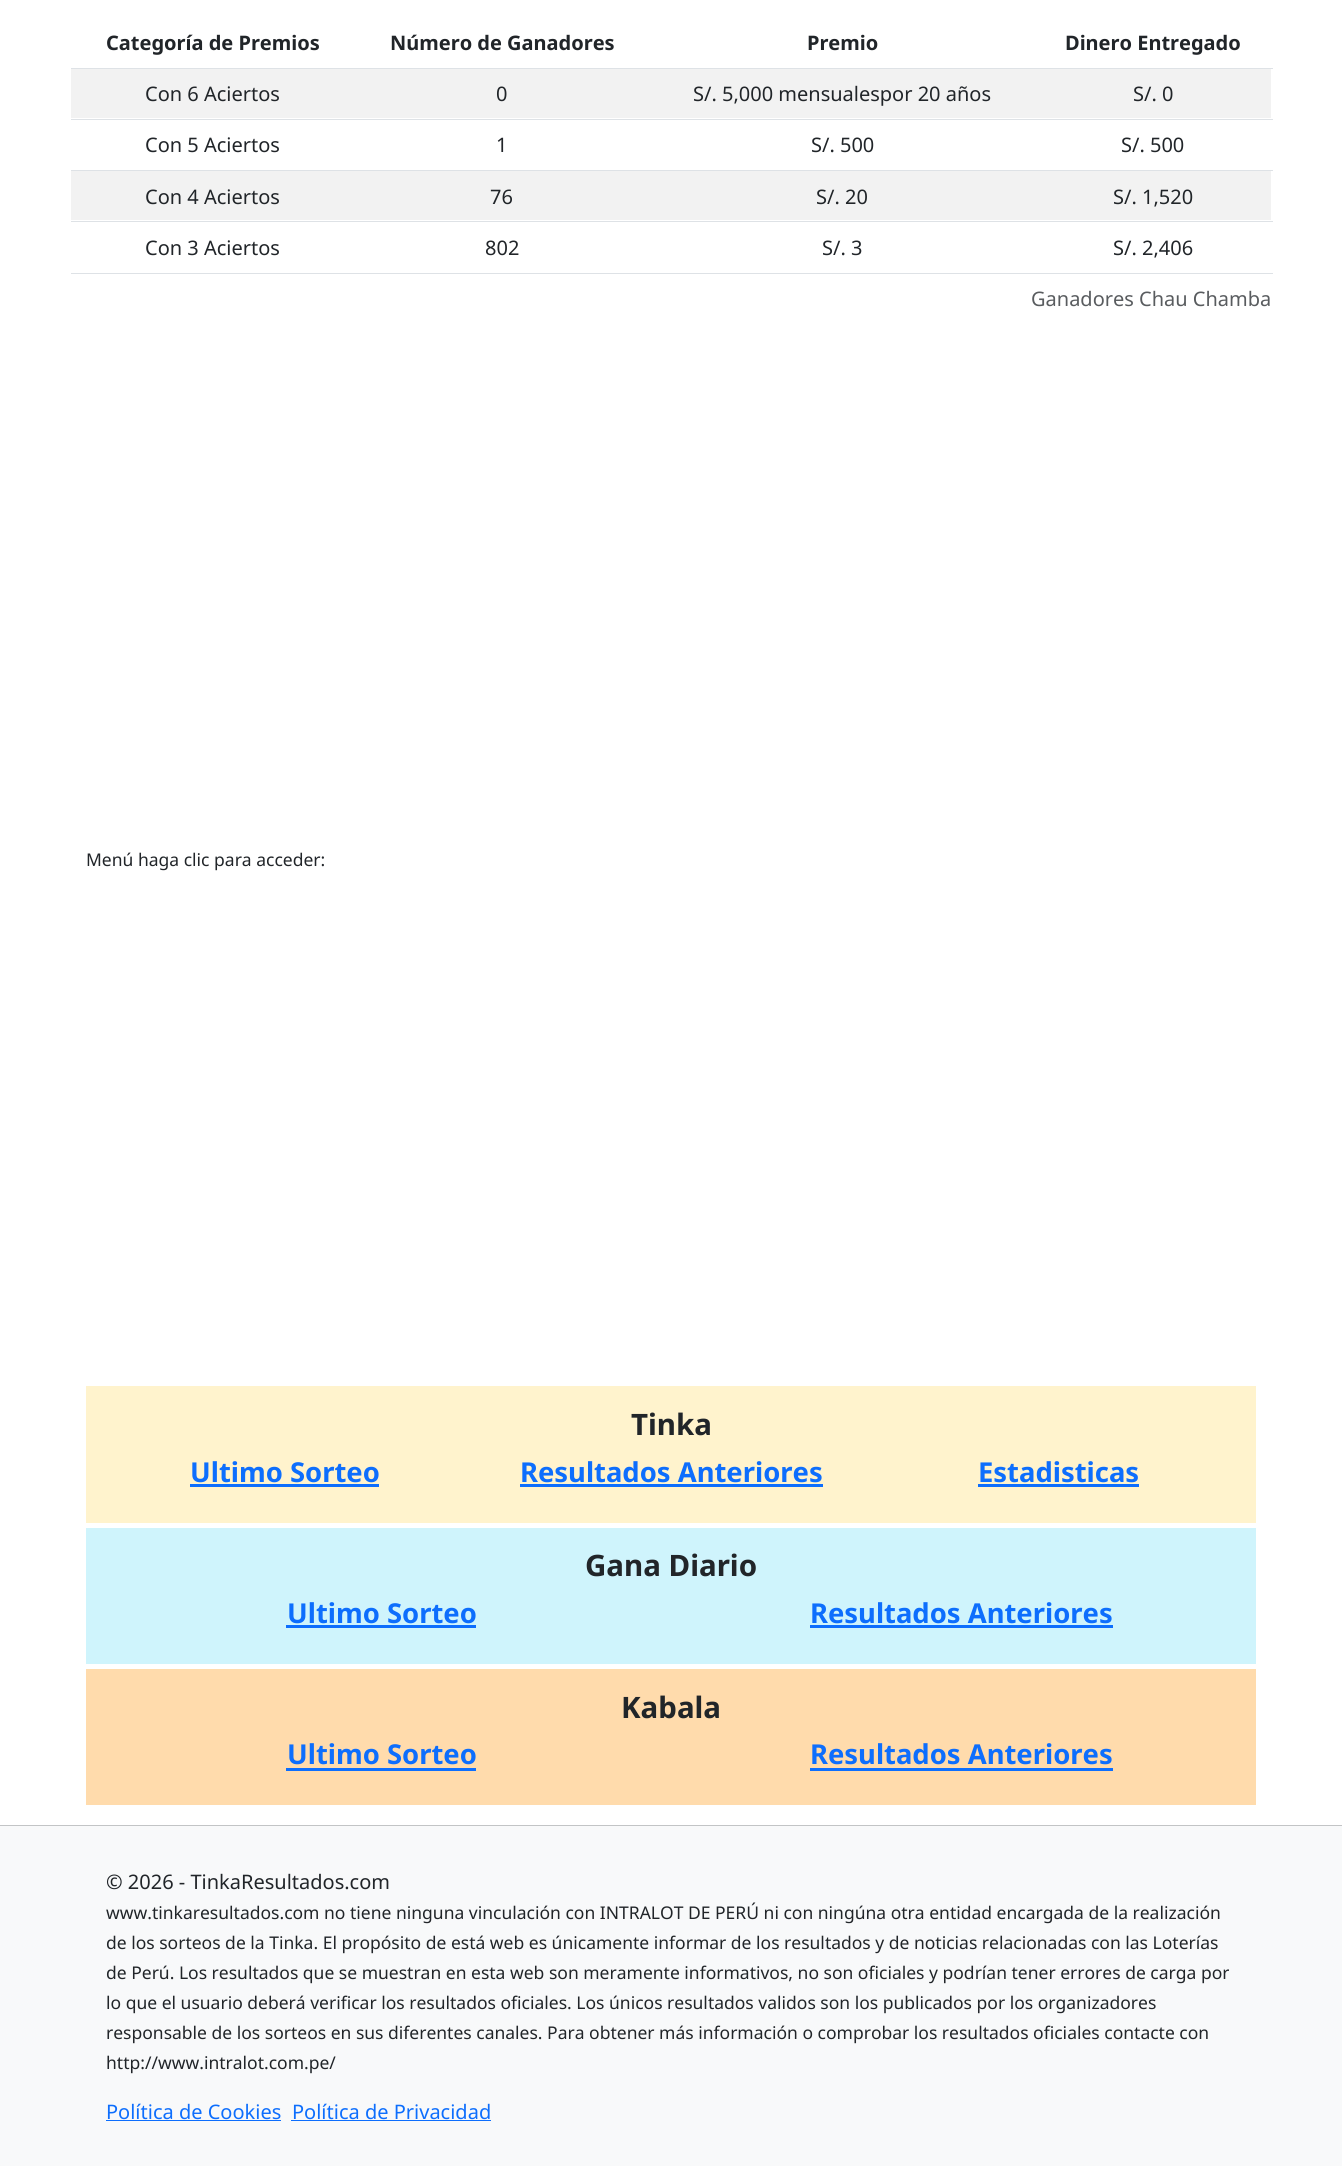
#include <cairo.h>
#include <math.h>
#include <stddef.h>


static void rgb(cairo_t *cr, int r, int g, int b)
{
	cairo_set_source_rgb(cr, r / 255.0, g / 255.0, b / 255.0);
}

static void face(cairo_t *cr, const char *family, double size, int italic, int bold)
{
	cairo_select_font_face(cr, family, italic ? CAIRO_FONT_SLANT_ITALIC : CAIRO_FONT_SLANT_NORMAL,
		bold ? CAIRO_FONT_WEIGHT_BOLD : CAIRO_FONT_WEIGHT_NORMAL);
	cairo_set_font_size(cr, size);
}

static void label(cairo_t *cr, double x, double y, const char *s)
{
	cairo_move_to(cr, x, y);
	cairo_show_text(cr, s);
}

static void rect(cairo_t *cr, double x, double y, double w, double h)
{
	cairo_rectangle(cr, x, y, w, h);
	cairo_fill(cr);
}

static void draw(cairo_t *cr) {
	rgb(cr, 255, 255, 255);
	cairo_paint(cr);
	face(cr, "Noto Sans", 20, 0, 1);
	rgb(cr, 33, 37, 41);
	label(cr, 106, 50, "Categoría de Premios");
	label(cr, 390, 50, "Número de Ganadores");
	label(cr, 807, 50, "Premio");
	rgb(cr, 222, 226, 230);
	rect(cr, 71, 68, 1202, 1);
	rgb(cr, 33, 37, 41);
	label(cr, 1065, 50, "Dinero Entregado");
	rgb(cr, 242, 242, 242);
	rect(cr, 71, 69, 1200, 49);
	face(cr, "Noto Sans", 20, 0, 0);
	rgb(cr, 33, 37, 41);
	label(cr, 145, 101, "Con 6 Aciertos");
	label(cr, 496, 101, "0");
	label(cr, 693, 101, "S/. 5,000 mensualespor 20 años");
	rgb(cr, 222, 226, 230);
	rect(cr, 71, 119, 1202, 1);
	rgb(cr, 33, 37, 41);
	label(cr, 1133, 101, "S/. 0");
	label(cr, 145, 152, "Con 5 Aciertos");
	label(cr, 496, 152, "1");
	label(cr, 811, 152, "S/. 500");
	rgb(cr, 222, 226, 230);
	rect(cr, 71, 170, 1202, 1);
	rgb(cr, 33, 37, 41);
	label(cr, 1121, 152, "S/. 500");
	rgb(cr, 242, 242, 242);
	rect(cr, 71, 171, 1200, 49);
	rgb(cr, 33, 37, 41);
	label(cr, 145, 204, "Con 4 Aciertos");
	label(cr, 490, 204, "76");
	label(cr, 816, 204, "S/. 20");
	rgb(cr, 222, 226, 230);
	rect(cr, 71, 221, 1202, 1);
	rgb(cr, 33, 37, 41);
	label(cr, 1113, 204, "S/. 1,520");
	label(cr, 145, 255, "Con 3 Aciertos");
	label(cr, 485, 255, "802");
	label(cr, 822, 255, "S/. 3");
	rgb(cr, 222, 226, 230);
	rect(cr, 71, 273, 1202, 1);
	rgb(cr, 33, 37, 41);
	label(cr, 1113, 255, "S/. 2,406");
	rgb(cr, 89, 92, 95);
	label(cr, 1031, 306, "Ganadores Chau Chamba");
	face(cr, "Noto Sans", 17.5, 0, 0);
	rgb(cr, 33, 37, 41);
	label(cr, 86, 866, "Menú haga clic para acceder:");
	rgb(cr, 255, 243, 205);
	rect(cr, 86, 1386, 1170, 137);
	face(cr, "Noto Sans", 29.5, 0, 1);
	rgb(cr, 33, 37, 41);
	label(cr, 631, 1435, "Tinka");
	face(cr, "Noto Sans", 27.4, 0, 1);
	rgb(cr, 13, 110, 253);
	label(cr, 190, 1482, "Ultimo Sorteo");
	rect(cr, 190, 1484, 189, 3);
	label(cr, 520, 1482, "Resultados Anteriores");
	rect(cr, 520, 1484, 303, 3);
	label(cr, 978, 1482, "Estadisticas");
	rect(cr, 978, 1484, 161, 3);
	rgb(cr, 207, 244, 252);
	rect(cr, 86, 1528, 1170, 136);
	face(cr, "Noto Sans", 29.5, 0, 1);
	rgb(cr, 33, 37, 41);
	label(cr, 585, 1576, "Gana Diario");
	face(cr, "Noto Sans", 27.4, 0, 1);
	rgb(cr, 13, 110, 253);
	label(cr, 287, 1623, "Ultimo Sorteo");
	rect(cr, 286, 1625, 190, 3);
	label(cr, 810, 1623, "Resultados Anteriores");
	rect(cr, 810, 1625, 303, 3);
	rgb(cr, 255, 219, 172);
	rect(cr, 86, 1669, 1170, 136);
	face(cr, "Noto Sans", 29.5, 0, 1);
	rgb(cr, 33, 37, 41);
	label(cr, 621, 1718, "Kabala");
	face(cr, "Noto Sans", 27.4, 0, 1);
	rgb(cr, 13, 110, 253);
	label(cr, 287, 1764, "Ultimo Sorteo");
	rect(cr, 286, 1768, 190, 3);
	label(cr, 810, 1764, "Resultados Anteriores");
	rect(cr, 810, 1768, 303, 3);
	rgb(cr, 248, 249, 250);
	rect(cr, 0, 1826, 1342, 340);
	rgb(cr, 194, 196, 198);
	rect(cr, 0, 1825, 1342, 1);
	face(cr, "Noto Sans", 20, 0, 0);
	rgb(cr, 33, 37, 41);
	label(cr, 106, 1889, "© 2026 - TinkaResultados.com");
	face(cr, "Noto Sans", 17.5, 0, 0);
	label(cr, 106, 1919, "www.tinkaresultados.com no tiene ninguna vinculación con INTRALOT DE PERÚ ni con ningúna otra entidad encargada de la realización");
	label(cr, 106, 1949, "de los sorteos de la Tinka. El propósito de está web es únicamente informar de los resultados y de noticias relacionadas con las Loterías");
	label(cr, 106, 1979, "de Perú. Los resultados que se muestran en esta web son meramente informativos, no son oficiales y podrían tener errores de carga por");
	label(cr, 106, 2009, "lo que el usuario deberá verificar los resultados oficiales. Los únicos resultados validos son los publicados por los organizadores");
	label(cr, 106, 2039, "responsable de los sorteos en sus diferentes canales. Para obtener más información o comprobar los resultados oficiales contacte con");
	label(cr, 106, 2069, "http://www.intralot.com.pe/");
	face(cr, "Noto Sans", 20, 0, 0);
	rgb(cr, 13, 110, 253);
	label(cr, 106, 2119, "Política de Cookies");
	rect(cr, 106, 2120, 175, 1);
	label(cr, 292, 2119, "Política de Privacidad");
	rect(cr, 291, 2120, 200, 1);
}

int main(void) {
	cairo_surface_t *surface = cairo_image_surface_create(CAIRO_FORMAT_RGB24, 1342, 2166);
	cairo_t *cr = cairo_create(surface);
	cairo_font_options_t *options = cairo_font_options_create();
	cairo_font_options_set_hint_metrics(options, CAIRO_HINT_METRICS_OFF);
	cairo_font_options_set_hint_style(options, CAIRO_HINT_STYLE_NONE);
	cairo_set_font_options(cr, options);
	cairo_set_miter_limit(cr, 4);
	draw(cr);
	cairo_surface_write_to_png(surface, "render.png");
	cairo_font_options_destroy(options);
	cairo_destroy(cr);
	cairo_surface_destroy(surface);
	return 0;
}
